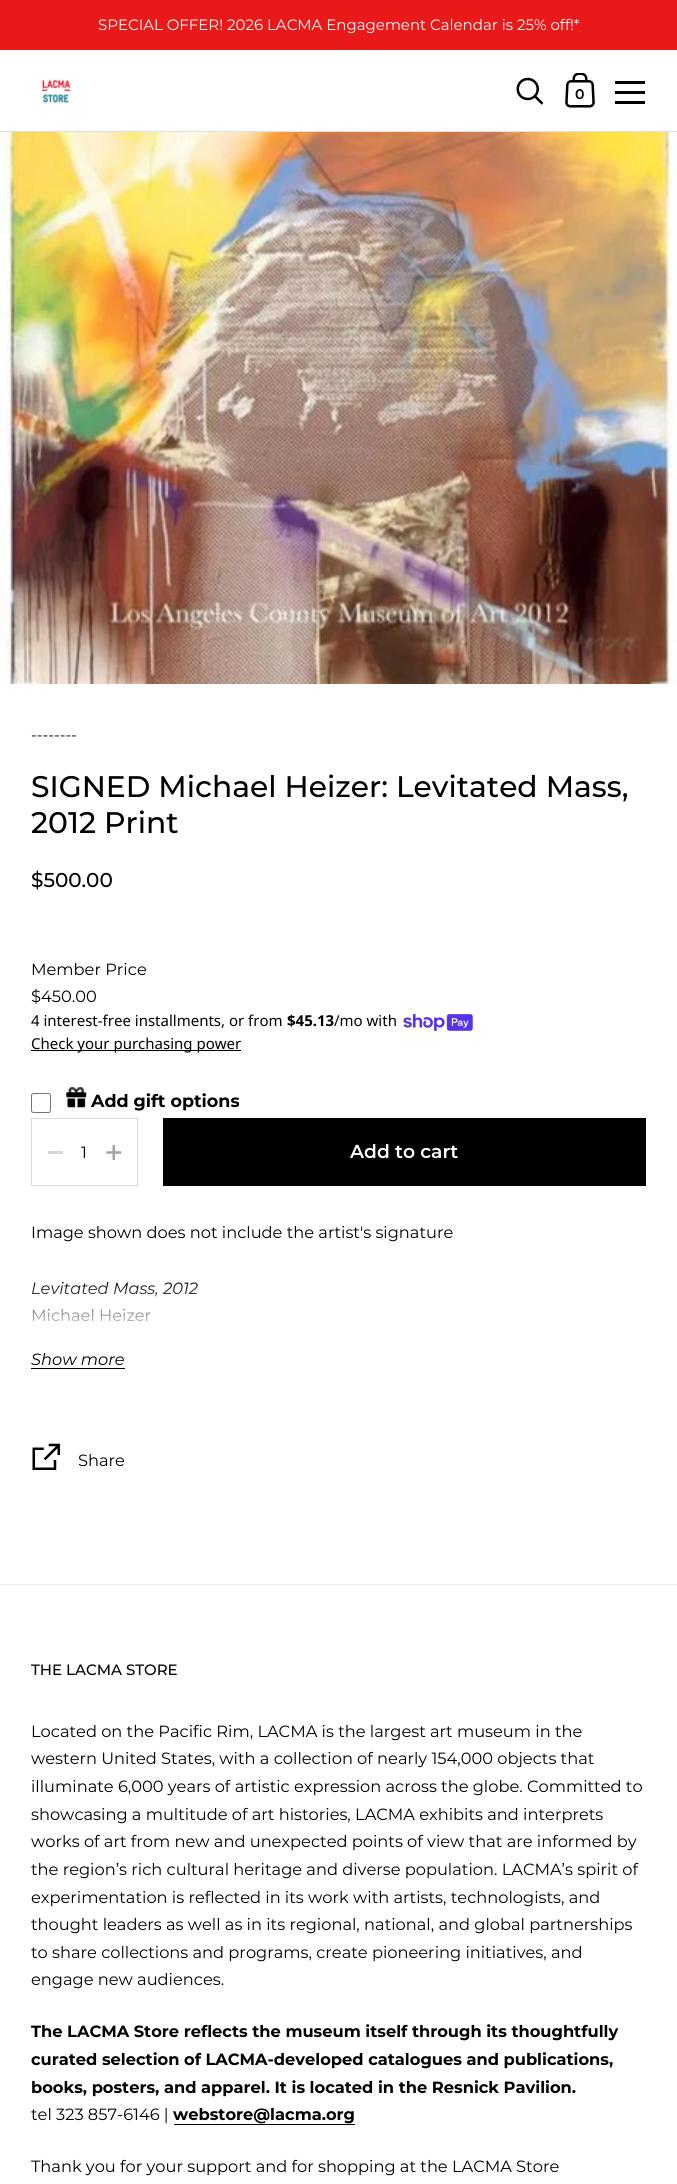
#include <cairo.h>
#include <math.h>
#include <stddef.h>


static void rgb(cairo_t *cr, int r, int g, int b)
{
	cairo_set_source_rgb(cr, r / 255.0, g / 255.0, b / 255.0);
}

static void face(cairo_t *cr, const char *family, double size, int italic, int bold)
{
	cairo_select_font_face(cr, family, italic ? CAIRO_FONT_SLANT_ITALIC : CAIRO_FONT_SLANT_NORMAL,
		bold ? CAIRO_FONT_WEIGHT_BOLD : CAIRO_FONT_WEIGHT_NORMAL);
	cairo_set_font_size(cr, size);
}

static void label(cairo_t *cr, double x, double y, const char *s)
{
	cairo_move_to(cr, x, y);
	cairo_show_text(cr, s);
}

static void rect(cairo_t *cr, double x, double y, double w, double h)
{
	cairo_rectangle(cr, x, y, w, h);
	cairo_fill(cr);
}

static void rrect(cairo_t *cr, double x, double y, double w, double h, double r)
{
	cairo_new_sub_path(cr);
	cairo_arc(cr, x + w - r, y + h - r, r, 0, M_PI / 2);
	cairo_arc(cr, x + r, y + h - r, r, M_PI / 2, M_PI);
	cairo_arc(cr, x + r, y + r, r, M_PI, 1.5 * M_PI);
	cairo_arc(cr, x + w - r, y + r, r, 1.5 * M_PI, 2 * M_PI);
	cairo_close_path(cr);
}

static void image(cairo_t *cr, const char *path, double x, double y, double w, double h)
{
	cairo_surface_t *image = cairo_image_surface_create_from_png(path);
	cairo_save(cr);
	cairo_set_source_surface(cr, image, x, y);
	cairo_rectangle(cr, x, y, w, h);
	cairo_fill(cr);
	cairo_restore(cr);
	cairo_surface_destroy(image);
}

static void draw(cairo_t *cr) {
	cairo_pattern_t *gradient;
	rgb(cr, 255, 255, 255);
	cairo_paint(cr);
	rgb(cr, 233, 25, 25);
	rect(cr, 0, 0, 677, 50);
	face(cr, "Montserrat", 15, 0, 0);
	rgb(cr, 255, 255, 255);
	label(cr, 98, 30, "SPECIAL OFFER! 2026 LACMA Engagement Calendar is 25% off!*");
	rgb(cr, 224, 224, 224);
	rect(cr, 0, 131, 677, 1);
	image(cr, "image0.png", 41, 79, 30, 24);
	image(cr, "image1.png", 516, 77, 28, 28);
	image(cr, "image2.png", 565, 73, 30, 35);
	face(cr, "Montserrat SemiBold", 14, 0, 0);
	rgb(cr, 0, 0, 0);
	label(cr, 575, 99, "0");
	rect(cr, 615, 81, 30, 3);
	rect(cr, 615, 91, 30, 3);
	rect(cr, 615, 101, 30, 3);
	rgb(cr, 235, 235, 235);
	rect(cr, 0, 1584, 677, 1);
	image(cr, "image3.png", 0, 132, 677, 552);
	face(cr, "Montserrat", 15, 0, 0);
	rgb(cr, 0, 0, 0);
	label(cr, 31, 740, "--------");
	face(cr, "Montserrat Medium", 29.75, 0, 0);
	label(cr, 31, 797, "SIGNED Michael Heizer: Levitated Mass,");
	label(cr, 31, 833, "2012 Print");
	face(cr, "Montserrat Medium", 20, 0, 0);
	label(cr, 31, 887, "$500.00");
	face(cr, "Montserrat", 16.25, 0, 0);
	label(cr, 31, 975, "Member Price");
	label(cr, 31, 1002, "$450.00");
	face(cr, "Noto Sans", 15, 0, 0);
	label(cr, 31, 1026, "4 interest-free installments, or from");
	face(cr, "Noto Sans", 15, 0, 1);
	label(cr, 287, 1026, "$45.13");
	face(cr, "Noto Sans", 15, 0, 0);
	label(cr, 334, 1026, "/mo with");
	image(cr, "image4.png", 403, 1014, 70, 17);
	rect(cr, 31, 1050, 210, 1);
	label(cr, 31, 1049, "Check your purchasing power");
	rrect(cr, 31.5, 1093.5, 19, 19, 2);
	rgb(cr, 118, 118, 118);
	cairo_set_line_width(cr, 1);
	cairo_stroke(cr);
	image(cr, "image5.png", 66, 1087, 21, 21);
	face(cr, "Montserrat", 17.5, 0, 1);
	rgb(cr, 0, 0, 0);
	label(cr, 91, 1107, "Add gift options");
	cairo_rectangle(cr, 31.5, 1118.5, 106, 67);
	rgb(cr, 219, 219, 219);
	cairo_stroke(cr);
	rgb(cr, 214, 214, 214);
	rect(cr, 48, 1151, 15, 3);
	face(cr, "Montserrat", 16.25, 0, 0);
	rgb(cr, 0, 0, 0);
	label(cr, 81, 1158, "1");
	image(cr, "image6.png", 106, 1145, 16, 15);
	rect(cr, 163, 1118, 483, 68);
	face(cr, "Montserrat SemiBold", 18.75, 0, 0);
	rgb(cr, 255, 255, 255);
	label(cr, 350, 1158, "Add to cart");
	face(cr, "Montserrat", 16.25, 0, 0);
	rgb(cr, 0, 0, 0);
	label(cr, 31, 1238, "Image shown does not include the artist's signature");
	face(cr, "Montserrat", 16.25, 1, 0);
	label(cr, 31, 1294, "Levitated Mass, 2012");
	face(cr, "Montserrat", 16.25, 0, 0);
	label(cr, 31, 1321, "Michael Heizer");
	gradient = cairo_pattern_create_linear(339, 1344, 339, 1281);
	cairo_pattern_add_color_stop_rgba(gradient, 0, 1, 1, 1, 1);
	cairo_pattern_add_color_stop_rgba(gradient, 0.1, 1, 1, 1, 1);
	cairo_pattern_add_color_stop_rgba(gradient, 1, 1, 1, 1, 0);
	cairo_set_source(cr, gradient);
	cairo_pattern_destroy(gradient);
	rect(cr, 32, 1282, 166, 40);
	rgb(cr, 0, 0, 0);
	rect(cr, 31, 1368, 94, 1);
	face(cr, "Montserrat", 16.25, 1, 0);
	label(cr, 31, 1365, "Show more");
	image(cr, "image7.png", 32, 1443, 28, 27);
	face(cr, "Montserrat", 16.25, 0, 0);
	label(cr, 78, 1466, "Share");
	face(cr, "Montserrat Medium", 15, 0, 0);
	label(cr, 31, 1675, "THE LACMA STORE");
	face(cr, "Montserrat", 16.25, 0, 0);
	label(cr, 31, 1737, "Located on the Pacific Rim, LACMA is the largest art museum in the");
	label(cr, 31, 1764, "western United States, with a collection of nearly 154,000 objects that");
	label(cr, 31, 1792, "illuminate 6,000 years of artistic expression across the globe. Committed to");
	label(cr, 31, 1820, "showcasing a multitude of art histories, LACMA exhibits and interprets");
	label(cr, 31, 1847, "works of art from new and unexpected points of view that are informed by");
	label(cr, 31, 1875, "the region’s rich cultural heritage and diverse population. LACMA’s spirit of");
	label(cr, 31, 1903, "experimentation is reflected in its work with artists, technologists, and");
	label(cr, 31, 1930, "thought leaders as well as in its regional, national, and global partnerships");
	label(cr, 31, 1958, "to share collections and programs, create pioneering initiatives, and");
	label(cr, 31, 1985, "engage new audiences.");
	face(cr, "Montserrat", 16.25, 0, 1);
	label(cr, 31, 2037, "The LACMA Store reflects the museum itself through its thoughtfully");
	label(cr, 31, 2065, "curated selection of LACMA-developed catalogues and publications,");
	label(cr, 31, 2093, "books, posters, and apparel. It is located in the Resnick Pavilion.");
	face(cr, "Montserrat", 16.25, 0, 0);
	label(cr, 31, 2120, "tel 323 857-6146 |");
	face(cr, "Montserrat", 16.25, 0, 1);
	label(cr, 173, 2120, "webstore@lacma.org");
	rect(cr, 174, 2124, 181, 1);
	face(cr, "Montserrat", 16.25, 0, 0);
	label(cr, 31, 2172, "Thank you for your support and for shopping at the LACMA Store");
}

int main(void) {
	cairo_surface_t *surface = cairo_image_surface_create(CAIRO_FORMAT_RGB24, 677, 2184);
	cairo_t *cr = cairo_create(surface);
	cairo_font_options_t *options = cairo_font_options_create();
	cairo_font_options_set_hint_metrics(options, CAIRO_HINT_METRICS_OFF);
	cairo_font_options_set_hint_style(options, CAIRO_HINT_STYLE_NONE);
	cairo_set_font_options(cr, options);
	cairo_set_miter_limit(cr, 4);
	draw(cr);
	cairo_surface_write_to_png(surface, "render.png");
	cairo_font_options_destroy(options);
	cairo_destroy(cr);
	cairo_surface_destroy(surface);
	return 0;
}
